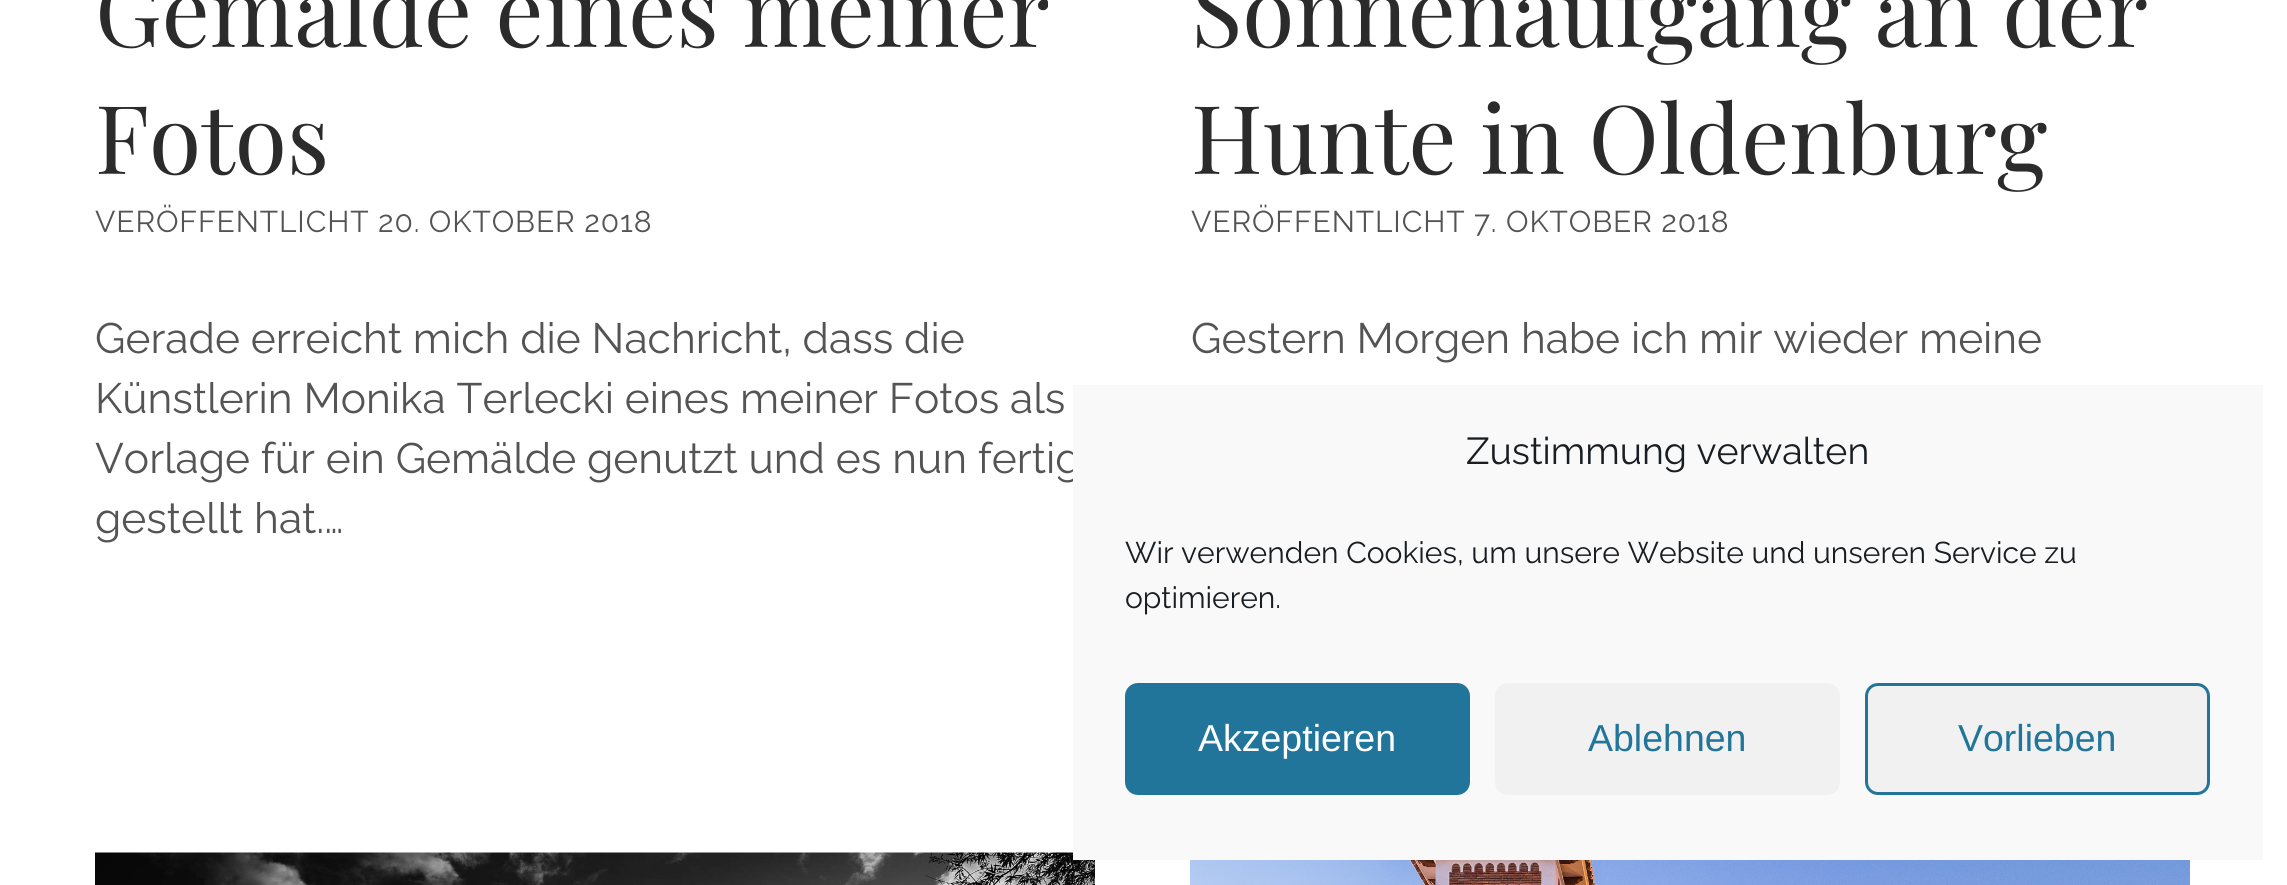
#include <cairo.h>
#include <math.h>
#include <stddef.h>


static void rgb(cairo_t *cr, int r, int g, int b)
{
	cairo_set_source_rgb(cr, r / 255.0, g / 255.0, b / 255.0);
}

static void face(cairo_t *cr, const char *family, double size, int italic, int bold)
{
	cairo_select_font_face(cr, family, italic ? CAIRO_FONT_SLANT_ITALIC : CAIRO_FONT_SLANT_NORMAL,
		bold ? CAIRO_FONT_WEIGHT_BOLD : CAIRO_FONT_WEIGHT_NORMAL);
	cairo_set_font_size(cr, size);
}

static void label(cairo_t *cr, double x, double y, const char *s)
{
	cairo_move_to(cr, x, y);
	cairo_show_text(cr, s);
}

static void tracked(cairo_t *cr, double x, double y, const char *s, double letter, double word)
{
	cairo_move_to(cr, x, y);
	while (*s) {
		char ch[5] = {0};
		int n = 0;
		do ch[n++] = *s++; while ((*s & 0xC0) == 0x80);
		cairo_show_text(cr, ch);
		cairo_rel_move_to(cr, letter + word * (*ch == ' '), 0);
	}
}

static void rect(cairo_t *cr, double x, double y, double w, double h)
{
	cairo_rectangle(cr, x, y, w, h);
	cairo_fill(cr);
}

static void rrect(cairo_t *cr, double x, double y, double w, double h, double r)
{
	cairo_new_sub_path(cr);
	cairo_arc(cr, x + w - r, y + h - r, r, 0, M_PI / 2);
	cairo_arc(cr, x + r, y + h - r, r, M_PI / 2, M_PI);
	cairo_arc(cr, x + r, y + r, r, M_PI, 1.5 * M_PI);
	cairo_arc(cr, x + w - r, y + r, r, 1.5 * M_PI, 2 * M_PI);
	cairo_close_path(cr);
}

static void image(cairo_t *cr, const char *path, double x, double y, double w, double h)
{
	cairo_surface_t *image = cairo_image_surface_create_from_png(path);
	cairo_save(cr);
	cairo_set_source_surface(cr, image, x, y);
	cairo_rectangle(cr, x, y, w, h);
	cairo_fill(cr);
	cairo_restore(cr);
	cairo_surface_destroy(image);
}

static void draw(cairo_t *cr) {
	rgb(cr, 255, 255, 255);
	cairo_paint(cr);
	face(cr, "Playfair Display", 95, 0, 0);
	rgb(cr, 43, 43, 43);
	label(cr, 95, 47, "Gemälde eines meiner");
	label(cr, 95, 174, "Fotos");
	face(cr, "Raleway", 30, 0, 0);
	rgb(cr, 84, 84, 84);
	tracked(cr, 95, 232, "VERÖFFENTLICHT 20. OKTOBER 2018", 0.9, 0);
	face(cr, "Raleway", 42.5, 0, 0);
	label(cr, 95, 353, "Gerade erreicht mich die Nachricht, dass die");
	label(cr, 95, 413, "Künstlerin Monika Terlecki eines meiner Fotos als");
	label(cr, 95, 473, "Vorlage für ein Gemälde genutzt und es nun fertig");
	label(cr, 95, 533, "gestellt hat.…");
	face(cr, "Playfair Display", 95, 0, 0);
	rgb(cr, 43, 43, 43);
	label(cr, 1191, 47, "Sonnenaufgang an der");
	label(cr, 1191, 174, "Hunte in Oldenburg");
	face(cr, "Raleway", 30, 0, 0);
	rgb(cr, 84, 84, 84);
	tracked(cr, 1191, 232, "VERÖFFENTLICHT 7. OKTOBER 2018", 0.9, 0);
	face(cr, "Raleway", 42.5, 0, 0);
	label(cr, 1191, 353, "Gestern Morgen habe ich mir wieder meine");
	image(cr, "image0.png", 95, 852, 1000, 33);
	image(cr, "image1.png", 1190, 860, 1000, 25);
	rgb(cr, 249, 249, 249);
	rect(cr, 1073, 385, 1190, 475);
	face(cr, "Raleway", 37.5, 0, 0);
	rgb(cr, 25, 30, 35);
	label(cr, 1466, 464, "Zustimmung verwalten");
	face(cr, "Raleway", 30, 0, 0);
	label(cr, 1125, 563, "Wir verwenden Cookies, um unsere Website und unseren Service zu");
	label(cr, 1125, 608, "optimieren.");
	rgb(cr, 33, 117, 155);
	rrect(cr, 1126.5, 684.5, 342, 109, 11.5);
	cairo_fill_preserve(cr);
	cairo_set_line_width(cr, 3);
	cairo_stroke(cr);
	face(cr, "Liberation Sans", 37.5, 0, 0);
	rgb(cr, 255, 255, 255);
	label(cr, 1198, 751, "Akzeptieren");
	rgb(cr, 241, 241, 241);
	rrect(cr, 1495, 683, 345, 112, 13);
	cairo_fill(cr);
	rgb(cr, 33, 117, 155);
	label(cr, 1588, 751, "Ablehnen");
	rgb(cr, 241, 241, 241);
	rrect(cr, 1866.5, 684.5, 342, 109, 11.5);
	cairo_fill_preserve(cr);
	rgb(cr, 33, 117, 155);
	cairo_stroke(cr);
	label(cr, 1958, 751, "Vorlieben");
}

int main(void) {
	cairo_surface_t *surface = cairo_image_surface_create(CAIRO_FORMAT_RGB24, 2287, 885);
	cairo_t *cr = cairo_create(surface);
	cairo_font_options_t *options = cairo_font_options_create();
	cairo_font_options_set_hint_metrics(options, CAIRO_HINT_METRICS_OFF);
	cairo_font_options_set_hint_style(options, CAIRO_HINT_STYLE_NONE);
	cairo_set_font_options(cr, options);
	cairo_set_miter_limit(cr, 4);
	draw(cr);
	cairo_surface_write_to_png(surface, "render.png");
	cairo_font_options_destroy(options);
	cairo_destroy(cr);
	cairo_surface_destroy(surface);
	return 0;
}
